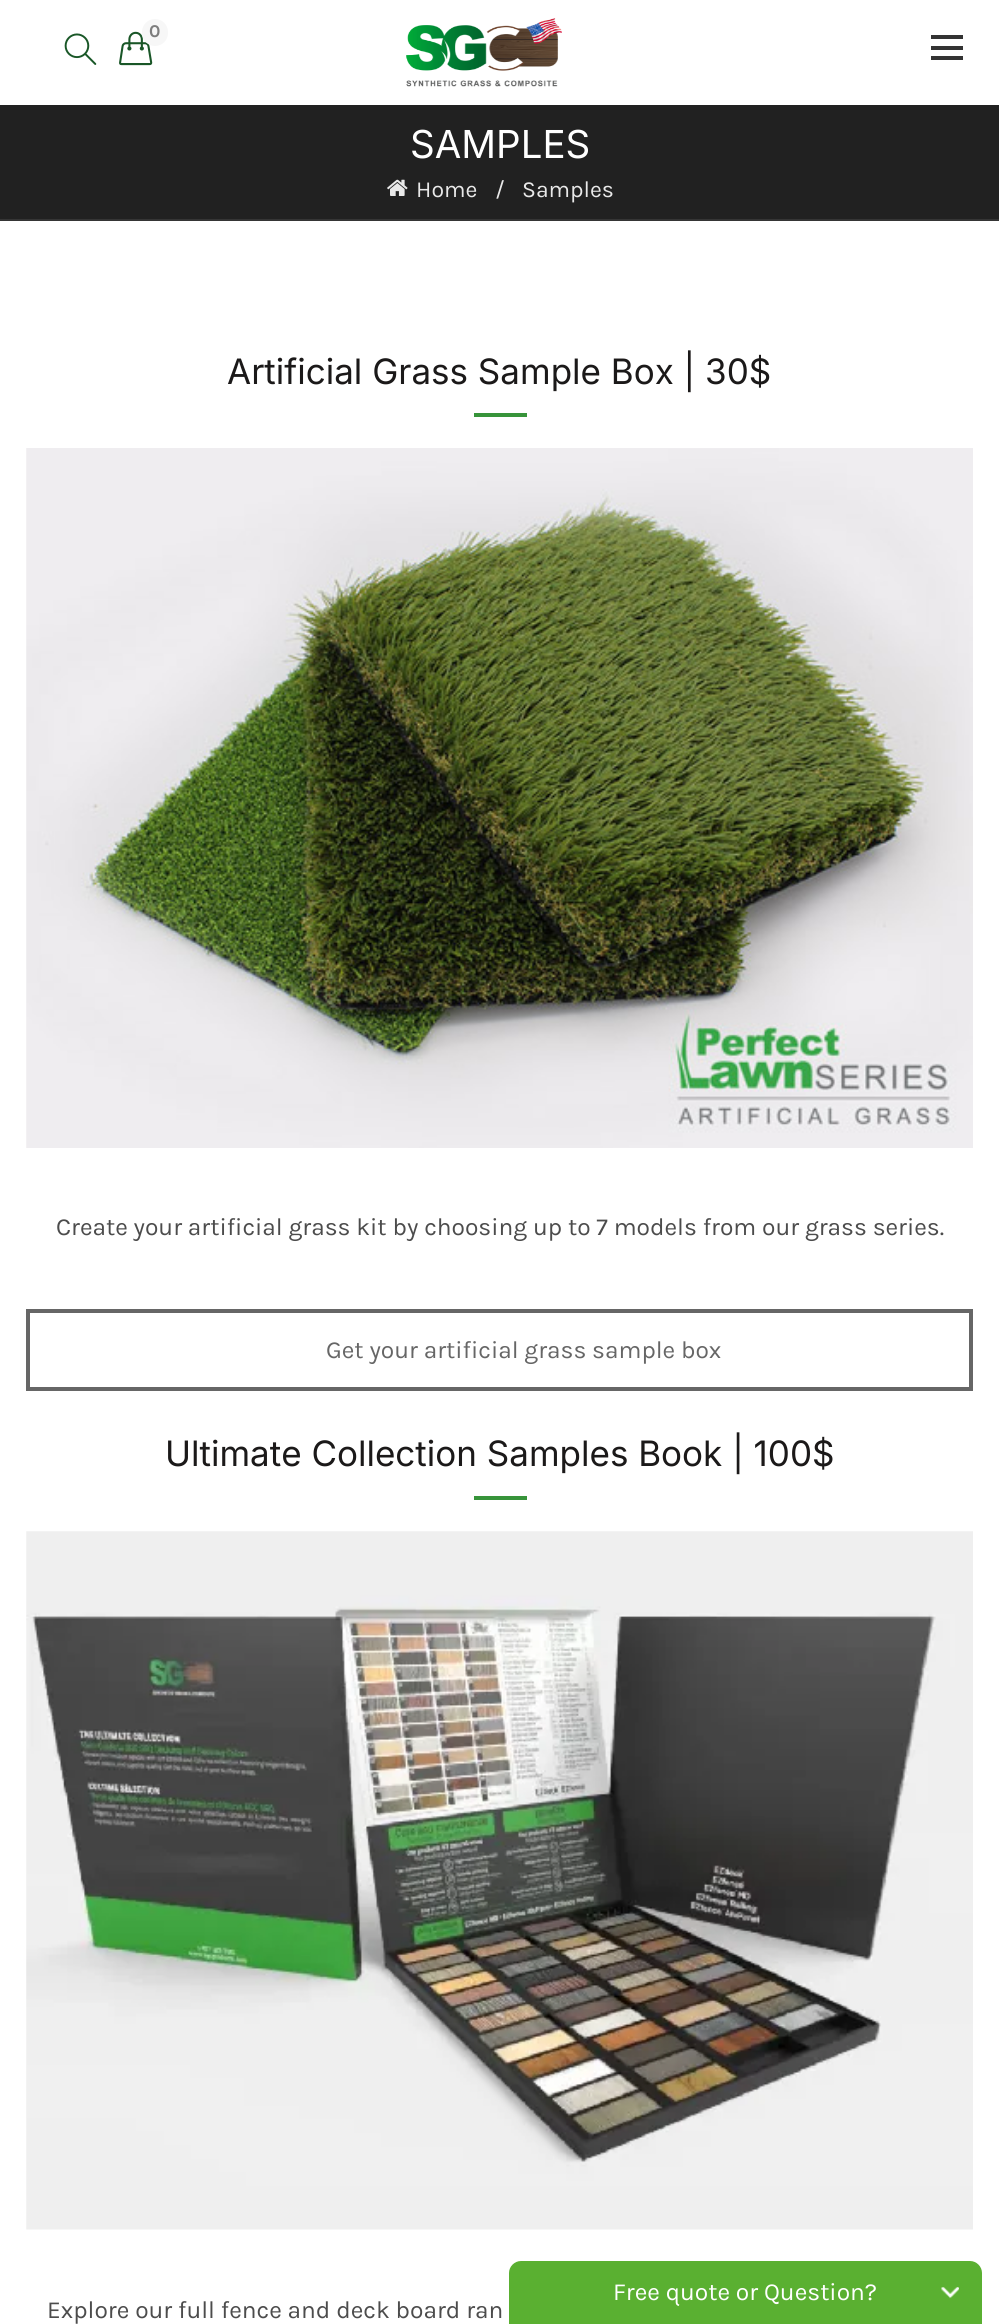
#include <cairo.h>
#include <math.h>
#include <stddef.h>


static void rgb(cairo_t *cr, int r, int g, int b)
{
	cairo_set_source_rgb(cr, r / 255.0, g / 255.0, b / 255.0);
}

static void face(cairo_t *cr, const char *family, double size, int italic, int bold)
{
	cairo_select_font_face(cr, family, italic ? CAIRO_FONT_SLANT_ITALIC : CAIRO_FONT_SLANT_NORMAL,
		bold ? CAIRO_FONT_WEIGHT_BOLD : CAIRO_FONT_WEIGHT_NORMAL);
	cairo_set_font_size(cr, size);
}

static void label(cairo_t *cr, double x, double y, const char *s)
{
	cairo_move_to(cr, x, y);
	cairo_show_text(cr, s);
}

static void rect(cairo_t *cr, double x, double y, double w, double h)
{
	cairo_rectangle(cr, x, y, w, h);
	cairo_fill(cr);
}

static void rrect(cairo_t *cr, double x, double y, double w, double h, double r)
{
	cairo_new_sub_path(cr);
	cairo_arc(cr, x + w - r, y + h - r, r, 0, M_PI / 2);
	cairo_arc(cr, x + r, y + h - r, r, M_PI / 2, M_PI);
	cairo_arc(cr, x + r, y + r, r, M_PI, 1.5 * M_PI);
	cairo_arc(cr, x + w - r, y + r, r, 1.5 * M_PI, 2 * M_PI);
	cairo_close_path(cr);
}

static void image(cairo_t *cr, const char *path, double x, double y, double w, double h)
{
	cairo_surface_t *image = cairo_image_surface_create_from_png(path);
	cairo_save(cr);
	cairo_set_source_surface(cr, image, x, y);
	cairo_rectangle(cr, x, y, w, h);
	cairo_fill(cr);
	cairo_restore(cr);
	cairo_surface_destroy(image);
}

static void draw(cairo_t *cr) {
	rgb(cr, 255, 255, 255);
	cairo_paint(cr);
	image(cr, "image0.png", 119, 31, 34, 35);
	rgb(cr, 247, 247, 247);
	rrect(cr, 142, 19, 26, 27, 13);
	cairo_fill(cr);
	face(cr, "Karla", 18, 0, 1);
	rgb(cr, 126, 126, 126);
	label(cr, 149, 37, "0");
	image(cr, "image1.png", 64, 33, 33, 32);
	rgb(cr, 51, 51, 51);
	rect(cr, 931, 46, 32, 4);
	rect(cr, 931, 35, 32, 4);
	rect(cr, 931, 56, 32, 4);
	image(cr, "image2.png", 406, 18, 156, 69);
	rgb(cr, 33, 33, 33);
	rect(cr, 0, 105, 999, 114);
	rgb(cr, 53, 53, 53);
	rect(cr, 0, 219, 999, 2);
	face(cr, "Inter", 38.5, 0, 0);
	rgb(cr, 255, 255, 255);
	label(cr, 410, 158, "SAMPLES");
	image(cr, "image3.png", 387, 179, 21, 17);
	face(cr, "Karla", 23, 0, 0);
	rgb(cr, 233, 233, 233);
	label(cr, 416, 197, "Home");
	label(cr, 495, 197, "/");
	label(cr, 522, 197, "Samples");
	face(cr, "Inter", 35, 0, 0);
	rgb(cr, 27, 25, 25);
	label(cr, 227, 384, "Artificial Grass Sample Box | 30$");
	rgb(cr, 55, 148, 58);
	rect(cr, 474, 413, 53, 4);
	image(cr, "image4.png", 26, 448, 947, 700);
	face(cr, "Karla", 24.5, 0, 0);
	rgb(cr, 76, 76, 76);
	label(cr, 56, 1235, "Create your artificial grass kit by choosing up to 7 models from our grass series.");
	cairo_rectangle(cr, 28, 1311, 943, 78);
	rgb(cr, 102, 102, 102);
	cairo_set_line_width(cr, 4);
	cairo_stroke(cr);
	label(cr, 326, 1358, "Get your artificial grass sample box");
	face(cr, "Inter", 35, 0, 0);
	rgb(cr, 27, 25, 25);
	label(cr, 165, 1466, "Ultimate Collection Samples Book | 100$");
	rgb(cr, 55, 148, 58);
	rect(cr, 474, 1496, 53, 4);
	image(cr, "image5.png", 26, 1531, 947, 699);
	face(cr, "Karla", 24.5, 0, 0);
	rgb(cr, 76, 76, 76);
	label(cr, 47, 2318, "Explore our full fence and deck board ran");
	rgb(cr, 90, 176, 49);
	cairo_new_path(cr);
	cairo_move_to(cr, 521, 2261);
	cairo_line_to(cr, 970, 2261);
	cairo_curve_to(cr, 976.5, 2261, 982, 2266.5, 982, 2273);
	cairo_line_to(cr, 982, 2324);
	cairo_line_to(cr, 509, 2324);
	cairo_line_to(cr, 509, 2273);
	cairo_curve_to(cr, 509, 2266.5, 514.5, 2261, 521, 2261);
	cairo_close_path(cr);
	cairo_fill(cr);
	rgb(cr, 255, 255, 255);
	label(cr, 613, 2300, "Free quote or Question?");
	image(cr, "image6.png", 941, 2287, 18, 12);
}

int main(void) {
	cairo_surface_t *surface = cairo_image_surface_create(CAIRO_FORMAT_RGB24, 999, 2324);
	cairo_t *cr = cairo_create(surface);
	cairo_font_options_t *options = cairo_font_options_create();
	cairo_font_options_set_hint_metrics(options, CAIRO_HINT_METRICS_OFF);
	cairo_font_options_set_hint_style(options, CAIRO_HINT_STYLE_NONE);
	cairo_set_font_options(cr, options);
	cairo_set_miter_limit(cr, 4);
	draw(cr);
	cairo_surface_write_to_png(surface, "render.png");
	cairo_font_options_destroy(options);
	cairo_destroy(cr);
	cairo_surface_destroy(surface);
	return 0;
}
